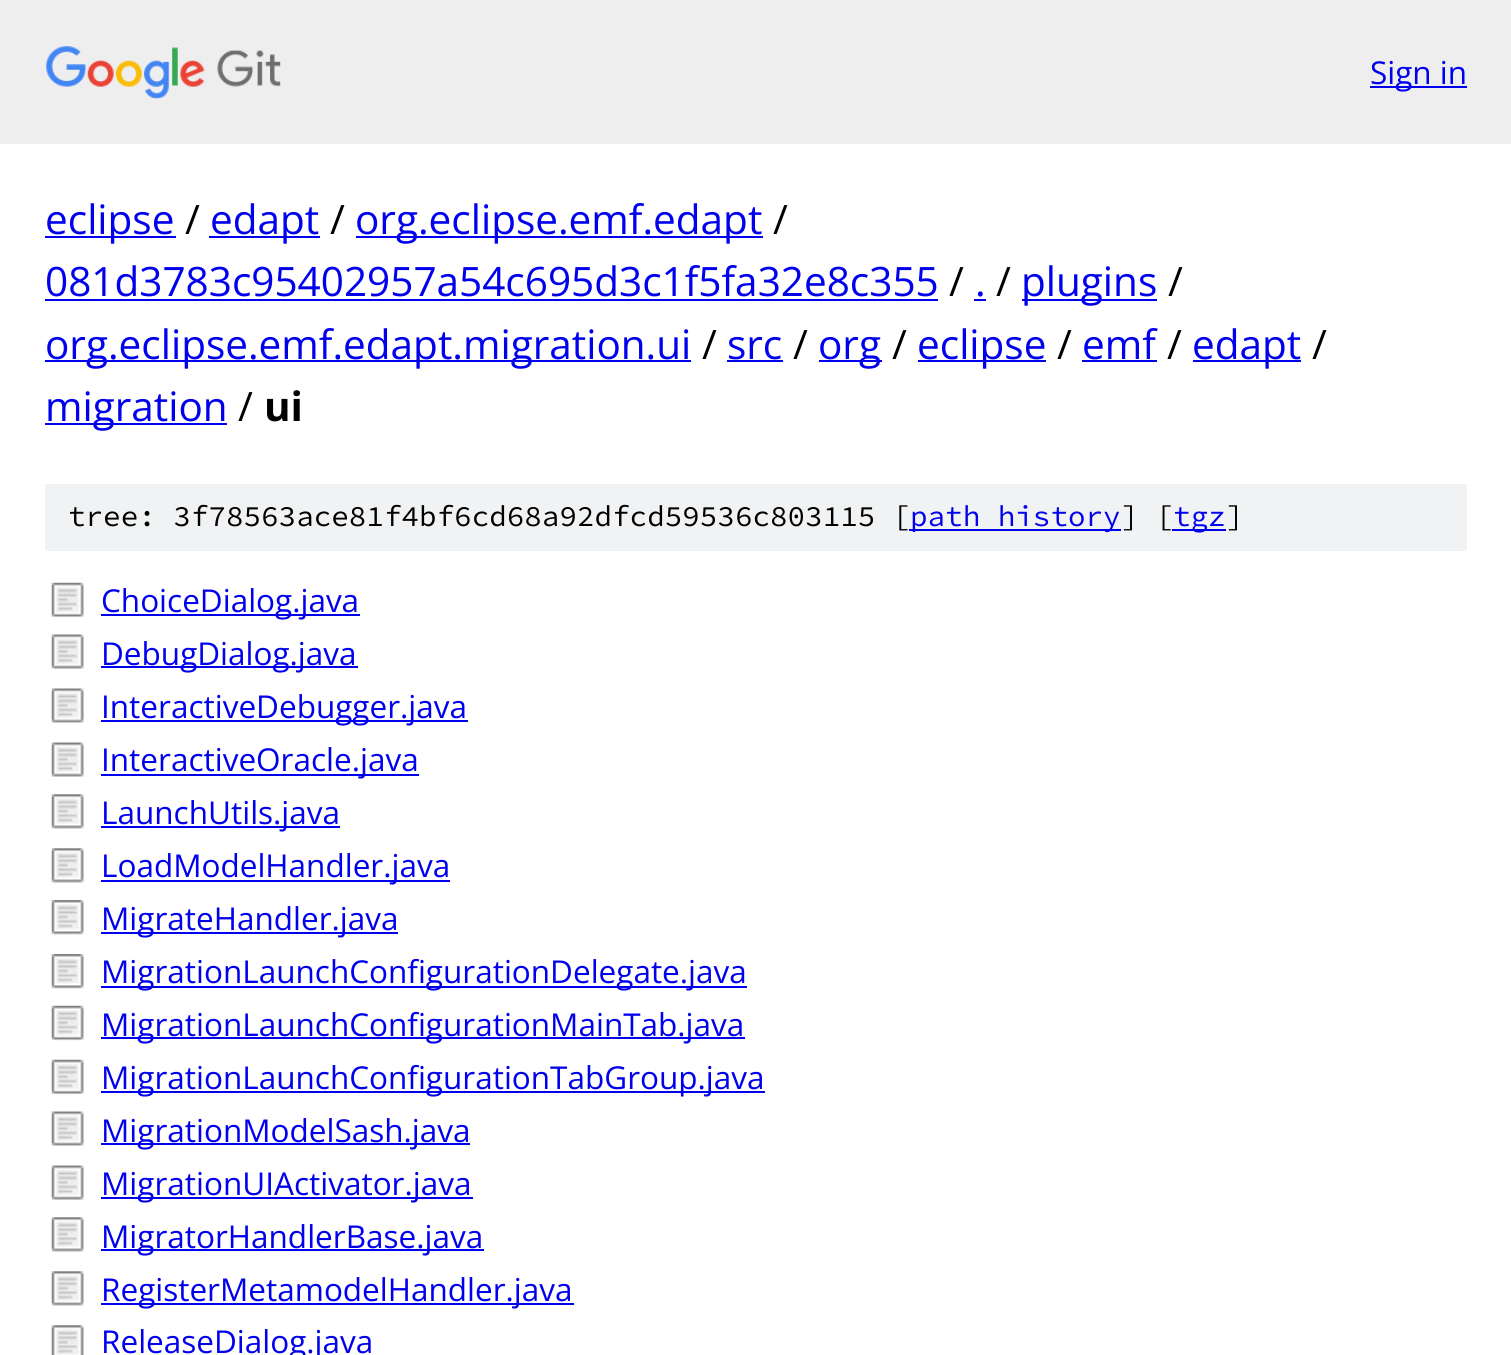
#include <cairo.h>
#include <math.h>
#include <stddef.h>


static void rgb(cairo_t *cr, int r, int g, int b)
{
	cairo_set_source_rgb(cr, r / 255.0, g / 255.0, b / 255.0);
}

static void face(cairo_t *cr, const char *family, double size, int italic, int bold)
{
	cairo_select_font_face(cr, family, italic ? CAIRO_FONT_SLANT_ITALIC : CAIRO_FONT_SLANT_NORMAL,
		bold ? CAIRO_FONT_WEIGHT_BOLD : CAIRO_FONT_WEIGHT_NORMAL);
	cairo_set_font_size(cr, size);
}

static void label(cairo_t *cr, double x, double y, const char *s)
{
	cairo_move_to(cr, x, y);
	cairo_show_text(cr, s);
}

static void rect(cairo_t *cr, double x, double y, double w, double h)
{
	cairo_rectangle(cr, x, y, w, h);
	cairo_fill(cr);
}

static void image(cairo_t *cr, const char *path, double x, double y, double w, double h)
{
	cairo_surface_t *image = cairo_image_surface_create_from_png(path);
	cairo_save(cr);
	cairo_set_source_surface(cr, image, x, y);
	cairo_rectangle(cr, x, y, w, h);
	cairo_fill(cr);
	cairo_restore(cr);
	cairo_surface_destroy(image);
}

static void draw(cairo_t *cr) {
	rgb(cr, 255, 255, 255);
	cairo_paint(cr);
	rgb(cr, 238, 238, 238);
	rect(cr, 0, 0, 1511, 144);
	image(cr, "image0.png", 46, 46, 235, 53);
	rgb(cr, 0, 0, 238);
	rect(cr, 1370, 86, 97, 2);
	face(cr, "Open Sans", 31.5, 0, 0);
	label(cr, 1370, 84, "Sign in");
	rect(cr, 45, 236, 131, 2);
	face(cr, "Open Sans", 40.5, 0, 0);
	label(cr, 45, 234, "eclipse");
	rgb(cr, 0, 0, 0);
	label(cr, 185, 234, "/");
	rgb(cr, 0, 0, 238);
	rect(cr, 209, 236, 111, 2);
	label(cr, 210, 234, "edapt");
	rgb(cr, 0, 0, 0);
	label(cr, 330, 234, "/");
	rgb(cr, 0, 0, 238);
	rect(cr, 356, 236, 407, 2);
	label(cr, 355, 234, "org.eclipse.emf.edapt");
	rgb(cr, 0, 0, 0);
	label(cr, 773, 234, "/");
	rgb(cr, 0, 0, 238);
	label(cr, 45, 296, "081d3783c95402957a54c695d3c1f5fa32e8c355");
	rect(cr, 45, 299, 893, 2);
	rgb(cr, 0, 0, 0);
	label(cr, 949, 296, "/");
	rgb(cr, 0, 0, 238);
	label(cr, 975, 296, ".");
	rect(cr, 974, 299, 12, 2);
	rgb(cr, 0, 0, 0);
	label(cr, 996, 296, "/");
	rgb(cr, 0, 0, 238);
	rect(cr, 1022, 299, 135, 2);
	label(cr, 1021, 296, "plugins");
	rgb(cr, 0, 0, 0);
	label(cr, 1168, 296, "/");
	rgb(cr, 0, 0, 238);
	rect(cr, 45, 360, 646, 2);
	label(cr, 45, 359, "org.eclipse.emf.edapt.migration.ui");
	rgb(cr, 0, 0, 0);
	label(cr, 702, 359, "/");
	rgb(cr, 0, 0, 238);
	label(cr, 727, 359, "src");
	rect(cr, 727, 360, 56, 2);
	rgb(cr, 0, 0, 0);
	label(cr, 793, 359, "/");
	rgb(cr, 0, 0, 238);
	rect(cr, 819, 360, 63, 2);
	label(cr, 818, 359, "org");
	rgb(cr, 0, 0, 0);
	label(cr, 892, 359, "/");
	rgb(cr, 0, 0, 238);
	rect(cr, 918, 360, 128, 2);
	label(cr, 917, 359, "eclipse");
	rgb(cr, 0, 0, 0);
	label(cr, 1057, 359, "/");
	rgb(cr, 0, 0, 238);
	label(cr, 1082, 359, "emf");
	rect(cr, 1082, 360, 75, 2);
	rgb(cr, 0, 0, 0);
	label(cr, 1167, 359, "/");
	rgb(cr, 0, 0, 238);
	rect(cr, 1193, 360, 108, 2);
	label(cr, 1192, 359, "edapt");
	rgb(cr, 0, 0, 0);
	label(cr, 1312, 359, "/");
	rgb(cr, 0, 0, 238);
	rect(cr, 45, 423, 182, 2);
	label(cr, 45, 421, "migration");
	rgb(cr, 0, 0, 0);
	label(cr, 238, 421, "/");
	face(cr, "Open Sans", 40.5, 0, 1);
	label(cr, 264, 421, "ui");
	rgb(cr, 241, 242, 243);
	rect(cr, 45, 484, 1422, 67);
	face(cr, "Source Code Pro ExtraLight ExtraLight", 29.25, 0, 0);
	rgb(cr, 0, 0, 0);
	label(cr, 68, 526, "tree: 3f78563ace81f4bf6cd68a92dfcd59536c803115 [");
	rgb(cr, 0, 0, 238);
	rect(cr, 909, 529, 212, 2);
	label(cr, 910, 526, "path history");
	rgb(cr, 0, 0, 0);
	label(cr, 1121, 526, "] [");
	rgb(cr, 0, 0, 238);
	rect(cr, 1172, 529, 54, 2);
	label(cr, 1173, 526, "tgz");
	rgb(cr, 0, 0, 0);
	label(cr, 1226, 526, "]");
	image(cr, "image1.png", 51, 582, 33, 36);
	rgb(cr, 0, 0, 238);
	rect(cr, 101, 614, 259, 2);
	face(cr, "Open Sans", 31.5, 0, 0);
	label(cr, 101, 612, "ChoiceDialog.java");
	image(cr, "image2.png", 51, 634, 33, 35);
	rect(cr, 101, 666, 257, 2);
	label(cr, 101, 665, "DebugDialog.java");
	image(cr, "image2.png", 51, 688, 33, 35);
	rect(cr, 101, 720, 367, 2);
	label(cr, 101, 718, "InteractiveDebugger.java");
	image(cr, "image2.png", 51, 742, 33, 35);
	rect(cr, 101, 774, 318, 2);
	label(cr, 101, 771, "InteractiveOracle.java");
	image(cr, "image3.png", 51, 794, 33, 35);
	rect(cr, 101, 826, 239, 2);
	label(cr, 101, 824, "LaunchUtils.java");
	image(cr, "image3.png", 51, 848, 33, 35);
	rect(cr, 101, 880, 349, 2);
	label(cr, 101, 877, "LoadModelHandler.java");
	image(cr, "image4.png", 51, 900, 33, 35);
	rect(cr, 101, 932, 297, 2);
	label(cr, 101, 930, "MigrateHandler.java");
	image(cr, "image4.png", 51, 954, 33, 35);
	rect(cr, 101, 986, 646, 2);
	label(cr, 101, 983, "MigrationLaunchConfigurationDelegate.java");
	image(cr, "image1.png", 51, 1005, 33, 36);
	rect(cr, 101, 1037, 644, 2);
	label(cr, 101, 1036, "MigrationLaunchConfigurationMainTab.java");
	image(cr, "image1.png", 51, 1059, 33, 36);
	rect(cr, 101, 1091, 664, 2);
	label(cr, 101, 1089, "MigrationLaunchConfigurationTabGroup.java");
	image(cr, "image2.png", 51, 1111, 33, 35);
	rect(cr, 101, 1143, 369, 2);
	label(cr, 101, 1142, "MigrationModelSash.java");
	image(cr, "image2.png", 51, 1165, 33, 35);
	rect(cr, 101, 1197, 372, 2);
	label(cr, 101, 1195, "MigrationUIActivator.java");
	image(cr, "image3.png", 51, 1217, 33, 35);
	rect(cr, 101, 1249, 383, 2);
	label(cr, 101, 1248, "MigratorHandlerBase.java");
	image(cr, "image3.png", 51, 1271, 33, 35);
	rect(cr, 101, 1303, 473, 2);
	label(cr, 101, 1301, "RegisterMetamodelHandler.java");
	image(cr, "image5.png", 51, 1325, 33, 30);
	label(cr, 101, 1353, "ReleaseDialog.java");
}

int main(void) {
	cairo_surface_t *surface = cairo_image_surface_create(CAIRO_FORMAT_RGB24, 1511, 1355);
	cairo_t *cr = cairo_create(surface);
	cairo_font_options_t *options = cairo_font_options_create();
	cairo_font_options_set_hint_metrics(options, CAIRO_HINT_METRICS_OFF);
	cairo_font_options_set_hint_style(options, CAIRO_HINT_STYLE_NONE);
	cairo_set_font_options(cr, options);
	cairo_set_miter_limit(cr, 4);
	draw(cr);
	cairo_surface_write_to_png(surface, "render.png");
	cairo_font_options_destroy(options);
	cairo_destroy(cr);
	cairo_surface_destroy(surface);
	return 0;
}
